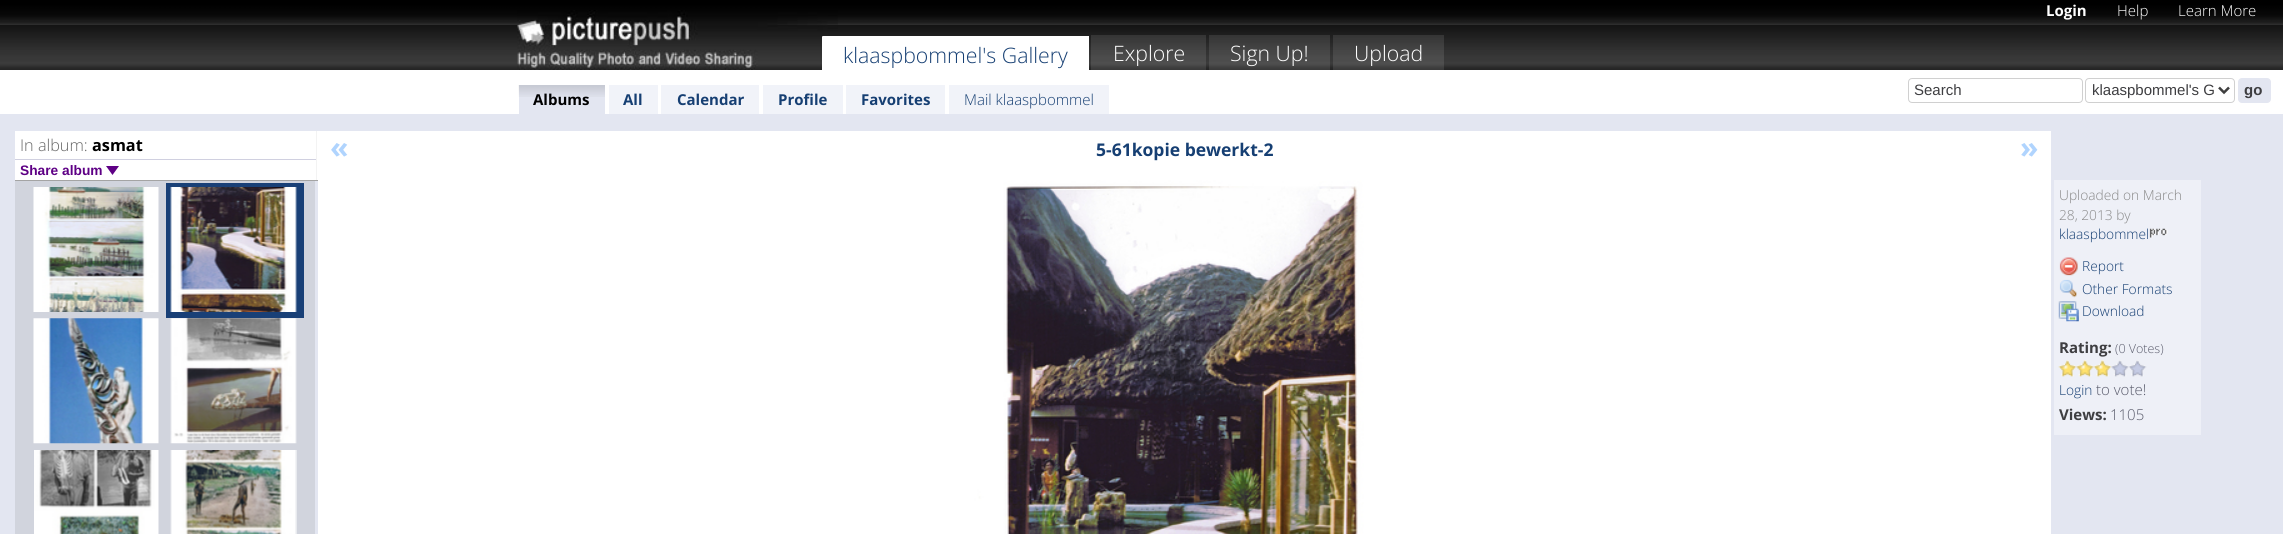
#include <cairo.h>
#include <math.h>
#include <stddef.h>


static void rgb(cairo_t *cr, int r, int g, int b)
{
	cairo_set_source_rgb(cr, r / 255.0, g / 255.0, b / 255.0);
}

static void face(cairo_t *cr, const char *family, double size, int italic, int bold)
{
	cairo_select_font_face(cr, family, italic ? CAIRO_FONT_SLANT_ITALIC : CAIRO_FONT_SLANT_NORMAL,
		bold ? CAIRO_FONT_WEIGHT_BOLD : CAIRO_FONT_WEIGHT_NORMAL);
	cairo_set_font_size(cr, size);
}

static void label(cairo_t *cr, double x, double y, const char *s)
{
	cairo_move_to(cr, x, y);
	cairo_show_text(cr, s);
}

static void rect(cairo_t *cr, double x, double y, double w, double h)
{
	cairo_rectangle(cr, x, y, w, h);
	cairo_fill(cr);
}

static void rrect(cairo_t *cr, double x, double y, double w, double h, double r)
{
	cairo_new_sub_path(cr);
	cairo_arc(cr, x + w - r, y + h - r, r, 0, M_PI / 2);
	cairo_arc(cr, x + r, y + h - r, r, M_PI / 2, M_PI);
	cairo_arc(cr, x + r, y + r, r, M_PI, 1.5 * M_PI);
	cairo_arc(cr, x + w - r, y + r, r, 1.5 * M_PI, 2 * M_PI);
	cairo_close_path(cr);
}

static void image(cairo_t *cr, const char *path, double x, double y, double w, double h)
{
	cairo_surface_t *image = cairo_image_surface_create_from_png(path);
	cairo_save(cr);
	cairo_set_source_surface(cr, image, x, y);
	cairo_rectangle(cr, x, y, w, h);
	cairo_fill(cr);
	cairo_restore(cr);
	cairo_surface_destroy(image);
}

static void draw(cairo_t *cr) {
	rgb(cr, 227, 230, 241);
	cairo_paint(cr);
	image(cr, "image0.png", 0, 0, 2283, 70);
	image(cr, "image1.png", 517, 10, 321, 60);
	rgb(cr, 255, 255, 255);
	rect(cr, 823, 36, 266, 34);
	face(cr, "Open Sans Light", 21.25, 0, 0);
	rgb(cr, 22, 63, 115);
	label(cr, 843, 63, "klaaspbommel's Gallery");
	rgb(cr, 255, 255, 255);
	cairo_new_path(cr);
	cairo_move_to(cr, 822, 36);
	cairo_line_to(cr, 1089, 36);
	cairo_line_to(cr, 1088, 38);
	cairo_line_to(cr, 824, 38);
	cairo_close_path(cr);
	cairo_fill(cr);
	rect(cr, 0, 70, 2283, 44);
	cairo_new_path(cr);
	cairo_move_to(cr, 822, 78);
	cairo_line_to(cr, 822, 36);
	cairo_line_to(cr, 824, 38);
	cairo_line_to(cr, 824, 76);
	cairo_close_path(cr);
	cairo_fill(cr);
	cairo_set_source_rgba(cr, 1, 1, 1, 0.1);
	rect(cr, 1091, 35, 115, 35);
	rgb(cr, 255, 255, 255);
	label(cr, 1113, 61, "Explore");
	cairo_set_source_rgba(cr, 1, 1, 1, 0.1);
	rect(cr, 1209, 35, 121, 35);
	rgb(cr, 255, 255, 255);
	label(cr, 1230, 61, "Sign Up!");
	cairo_set_source_rgba(cr, 1, 1, 1, 0.1);
	rect(cr, 1333, 35, 111, 35);
	rgb(cr, 255, 255, 255);
	label(cr, 1354, 61, "Upload");
	face(cr, "Open Sans", 15, 0, 1);
	label(cr, 2046, 16, "Login");
	face(cr, "Open Sans Light", 15, 0, 0);
	label(cr, 2117, 16, "Help");
	label(cr, 2178, 16, "Learn More");
	rrect(cr, 1908.5, 78.5, 174, 24, 3.5);
	rgb(cr, 208, 208, 208);
	cairo_set_line_width(cr, 1);
	cairo_stroke(cr);
	face(cr, "Liberation Sans", 15, 0, 0);
	rgb(cr, 62, 62, 65);
	label(cr, 1914, 95, "Search");
	rrect(cr, 2085.5, 78.5, 149, 24, 3.5);
	rgb(cr, 208, 208, 208);
	cairo_stroke(cr);
	cairo_new_path(cr);
	cairo_move_to(cr, 2219, 87.5);
	cairo_line_to(cr, 2224, 92.5);
	cairo_line_to(cr, 2229, 87.5);
	rgb(cr, 62, 62, 62);
	cairo_set_line_width(cr, 2.5);
	cairo_stroke(cr);
	rgb(cr, 62, 62, 65);
	label(cr, 2092, 95, "klaaspbommel's G");
	rgb(cr, 227, 230, 241);
	rrect(cr, 2238.5, 78.5, 32, 24, 3.5);
	cairo_fill_preserve(cr);
	cairo_set_line_width(cr, 1);
	cairo_stroke(cr);
	face(cr, "Liberation Sans", 15, 0, 1);
	rgb(cr, 62, 62, 65);
	label(cr, 2244, 95, "go");
	rgb(cr, 227, 230, 241);
	rect(cr, 519, 85, 86, 29);
	image(cr, "image2.png", 518, 85, 87, 12);
	face(cr, "Open Sans", 15, 0, 1);
	rgb(cr, 0, 0, 0);
	label(cr, 533, 105, "Albums");
	rgb(cr, 241, 243, 249);
	rect(cr, 609, 85, 49, 29);
	rgb(cr, 22, 63, 115);
	label(cr, 623, 105, "All");
	rgb(cr, 241, 243, 249);
	rect(cr, 661, 85, 98, 29);
	rgb(cr, 22, 63, 115);
	label(cr, 677, 105, "Calendar");
	rgb(cr, 241, 243, 249);
	rect(cr, 763, 85, 80, 29);
	rgb(cr, 22, 63, 115);
	label(cr, 778, 105, "Profile");
	rgb(cr, 241, 243, 249);
	rect(cr, 846, 85, 99, 29);
	rgb(cr, 22, 63, 115);
	label(cr, 861, 105, "Favorites");
	rgb(cr, 241, 243, 249);
	rect(cr, 949, 85, 160, 29);
	face(cr, "Open Sans Light", 15, 0, 0);
	rgb(cr, 22, 63, 115);
	label(cr, 964, 105, "Mail klaaspbommel");
	rgb(cr, 255, 255, 255);
	rect(cr, 15, 131, 303, 49);
	rgb(cr, 243, 243, 243);
	rect(cr, 316, 131, 1, 50);
	rgb(cr, 164, 164, 164);
	rect(cr, 15, 180, 303, 1);
	face(cr, "Open Sans Light", 16.25, 0, 0);
	rgb(cr, 102, 102, 102);
	label(cr, 20, 151, "In album:");
	face(cr, "Open Sans", 16.25, 0, 1);
	rgb(cr, 0, 0, 0);
	label(cr, 92, 151, "asmat");
	rgb(cr, 208, 208, 224);
	rect(cr, 15, 159, 301, 1);
	face(cr, "Liberation Sans", 13.75, 0, 1);
	rgb(cr, 94, 0, 133);
	label(cr, 20, 175, "Share album");
	cairo_new_path(cr);
	cairo_move_to(cr, 106, 166);
	cairo_line_to(cr, 119, 166);
	cairo_line_to(cr, 112.5, 175);
	cairo_close_path(cr);
	cairo_fill(cr);
	rgb(cr, 209, 212, 221);
	rect(cr, 15, 181, 300, 353);
	image(cr, "image3.png", 33, 187, 126, 125);
	rgb(cr, 25, 64, 119);
	rect(cr, 166, 183, 138, 135);
	image(cr, "image4.png", 170, 187, 127, 125);
	image(cr, "image5.png", 33, 318, 126, 126);
	image(cr, "image6.png", 170, 318, 127, 126);
	image(cr, "image7.png", 34, 450, 125, 84);
	image(cr, "image8.png", 170, 450, 127, 84);
	rgb(cr, 255, 255, 255);
	rect(cr, 318, 131, 1733, 403);
	face(cr, "Open Sans", 30, 0, 1);
	rgb(cr, 176, 212, 254);
	label(cr, 330, 158, "«");
	face(cr, "Open Sans", 17.5, 0, 1);
	rgb(cr, 22, 63, 115);
	label(cr, 1096, 156, "5-61kopie bewerkt-2");
	face(cr, "Open Sans", 30, 0, 1);
	rgb(cr, 176, 212, 254);
	label(cr, 2020, 158, "»");
	image(cr, "image9.png", 974, 180, 421, 354);
	rgb(cr, 238, 240, 247);
	rect(cr, 2054, 180, 147, 255);
	face(cr, "Open Sans Light", 13.75, 0, 0);
	rgb(cr, 136, 136, 136);
	label(cr, 2059, 200, "Uploaded on March");
	label(cr, 2059, 220, "28, 2013 by");
	rgb(cr, 22, 63, 115);
	label(cr, 2059, 239, "klaaspbommel");
	image(cr, "image10.png", 2149, 228, 19, 10);
	image(cr, "image11.png", 2059, 257, 19, 19);
	label(cr, 2082, 271, "Report");
	image(cr, "image12.png", 2059, 279, 18, 19);
	label(cr, 2082, 294, "Other Formats");
	image(cr, "image13.png", 2058, 301, 21, 21);
	label(cr, 2082, 316, "Download");
	face(cr, "Open Sans", 15, 0, 1);
	rgb(cr, 62, 62, 65);
	label(cr, 2059, 353, "Rating:");
	face(cr, "Open Sans Light", 12.5, 0, 0);
	rgb(cr, 90, 92, 108);
	label(cr, 2115, 353, "(0 Votes)");
	image(cr, "image14.png", 2058, 360, 19, 17);
	image(cr, "image15.png", 2076, 360, 18, 17);
	image(cr, "image16.png", 2093, 360, 19, 17);
	image(cr, "image17.png", 2111, 360, 18, 17);
	image(cr, "image18.png", 2129, 360, 18, 17);
	face(cr, "Open Sans Light", 13.75, 0, 0);
	rgb(cr, 22, 63, 115);
	label(cr, 2059, 395, "Login");
	face(cr, "Open Sans Light", 15, 0, 0);
	rgb(cr, 90, 92, 108);
	label(cr, 2096, 395, "to vote!");
	face(cr, "Open Sans", 15, 0, 1);
	rgb(cr, 62, 62, 65);
	label(cr, 2059, 420, "Views:");
	face(cr, "Open Sans Light", 15, 0, 0);
	rgb(cr, 90, 92, 108);
	label(cr, 2110, 420, "1105");
}

int main(void) {
	cairo_surface_t *surface = cairo_image_surface_create(CAIRO_FORMAT_RGB24, 2283, 534);
	cairo_t *cr = cairo_create(surface);
	cairo_font_options_t *options = cairo_font_options_create();
	cairo_font_options_set_hint_metrics(options, CAIRO_HINT_METRICS_OFF);
	cairo_font_options_set_hint_style(options, CAIRO_HINT_STYLE_NONE);
	cairo_set_font_options(cr, options);
	cairo_set_miter_limit(cr, 4);
	draw(cr);
	cairo_surface_write_to_png(surface, "render.png");
	cairo_font_options_destroy(options);
	cairo_destroy(cr);
	cairo_surface_destroy(surface);
	return 0;
}
